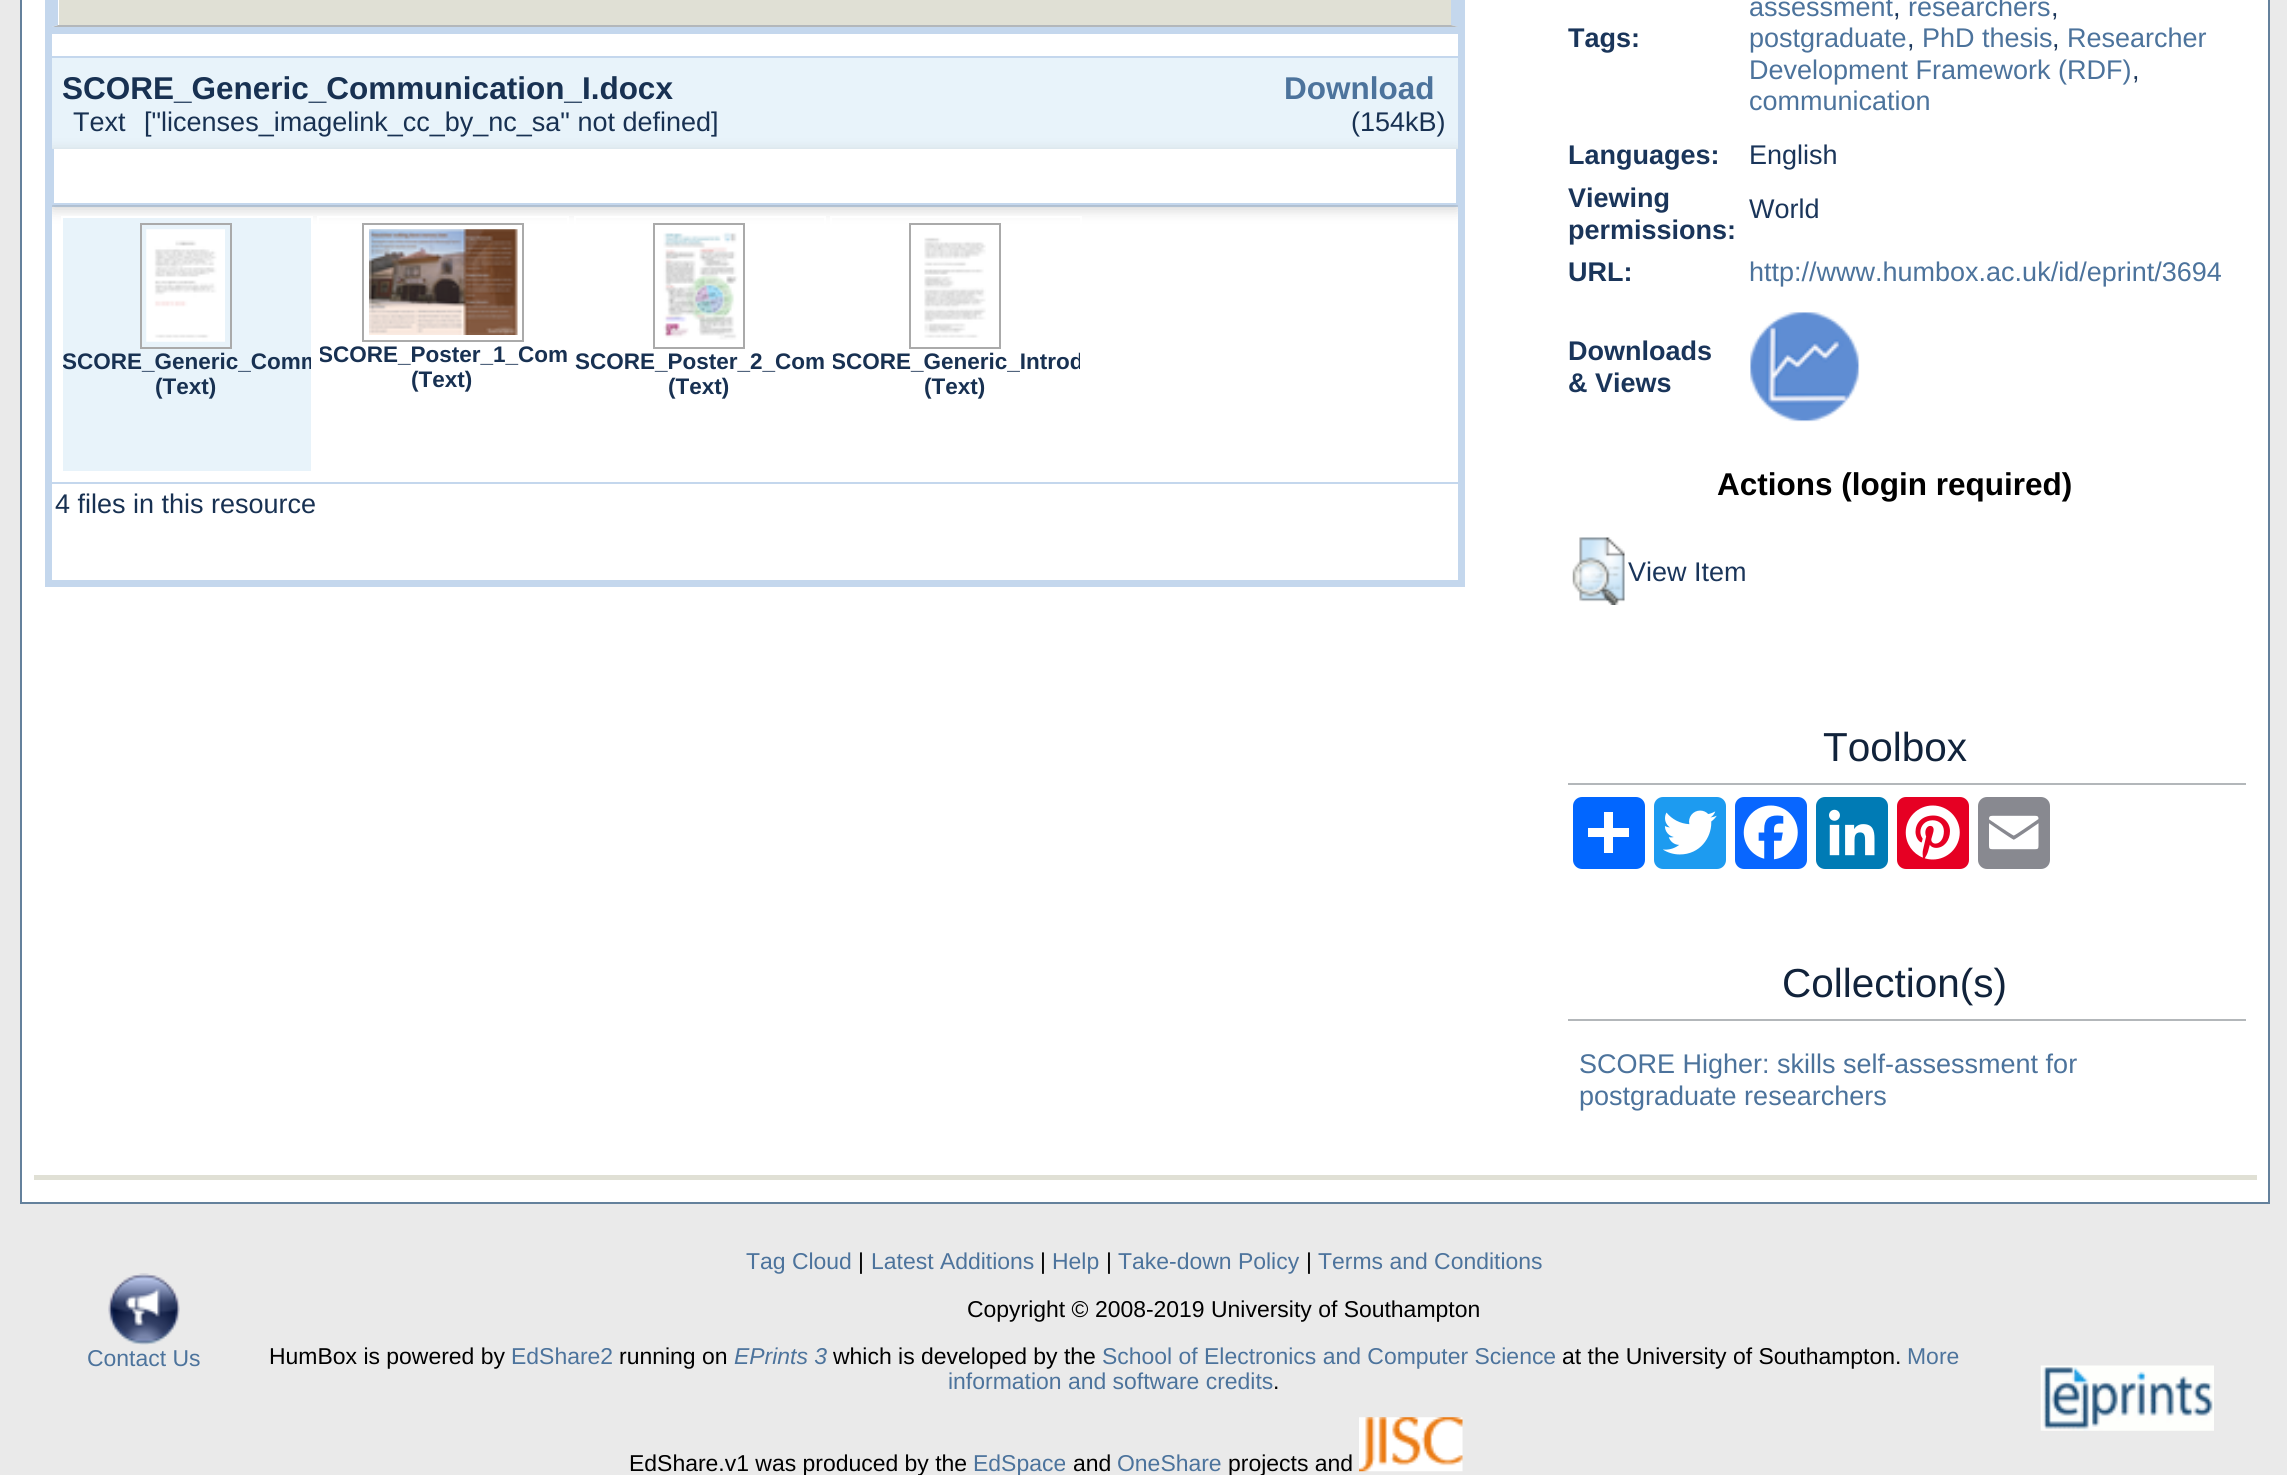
#include <cairo.h>
#include <math.h>
#include <stddef.h>


static void rgb(cairo_t *cr, int r, int g, int b)
{
	cairo_set_source_rgb(cr, r / 255.0, g / 255.0, b / 255.0);
}

static void face(cairo_t *cr, const char *family, double size, int italic, int bold)
{
	cairo_select_font_face(cr, family, italic ? CAIRO_FONT_SLANT_ITALIC : CAIRO_FONT_SLANT_NORMAL,
		bold ? CAIRO_FONT_WEIGHT_BOLD : CAIRO_FONT_WEIGHT_NORMAL);
	cairo_set_font_size(cr, size);
}

static void label(cairo_t *cr, double x, double y, const char *s)
{
	cairo_move_to(cr, x, y);
	cairo_show_text(cr, s);
}

static void rect(cairo_t *cr, double x, double y, double w, double h)
{
	cairo_rectangle(cr, x, y, w, h);
	cairo_fill(cr);
}

static void rrect(cairo_t *cr, double x, double y, double w, double h, double r)
{
	cairo_new_sub_path(cr);
	cairo_arc(cr, x + w - r, y + h - r, r, 0, M_PI / 2);
	cairo_arc(cr, x + r, y + h - r, r, M_PI / 2, M_PI);
	cairo_arc(cr, x + r, y + r, r, M_PI, 1.5 * M_PI);
	cairo_arc(cr, x + w - r, y + r, r, 1.5 * M_PI, 2 * M_PI);
	cairo_close_path(cr);
}

static void soft_shadow(cairo_t *cr, double x, double y, double w, double h, double r, double blur, double alpha)
{
	cairo_push_group_with_content(cr, CAIRO_CONTENT_ALPHA);
	cairo_set_operator(cr, CAIRO_OPERATOR_SOURCE);
	for (int i = 15; i >= -15 && fmin(w, h) + blur * i / 3 > 0; i -= 2) {
		double e = blur * i / 6;
		cairo_set_source_rgba(cr, 0, 0, 0, alpha * erfc((i - 1) / 8.5) / 2);
		rrect(cr, x - e, y - e, w + 2 * e, h + 2 * e, fmax(0, fmin(r + e + blur * .6, fmin(w, h) / 2 + e)));
		cairo_fill(cr);
	}
	cairo_pattern_t *soft = cairo_pop_group(cr);
	cairo_mask(cr, soft);
	cairo_pattern_destroy(soft);
}

static void image(cairo_t *cr, const char *path, double x, double y, double w, double h)
{
	cairo_surface_t *image = cairo_image_surface_create_from_png(path);
	cairo_save(cr);
	cairo_set_source_surface(cr, image, x, y);
	cairo_rectangle(cr, x, y, w, h);
	cairo_fill(cr);
	cairo_restore(cr);
	cairo_surface_destroy(image);
}

static void draw(cairo_t *cr) {
	rgb(cr, 234, 234, 234);
	cairo_paint(cr);
	rgb(cr, 255, 255, 255);
	rect(cr, 22, 0, 2246, 1202);
	rgb(cr, 100, 129, 156);
	rect(cr, 2268, 0, 2, 1204);
	rect(cr, 20, 1202, 2250, 2);
	rect(cr, 20, 0, 2, 1204);
	rgb(cr, 224, 224, 213);
	rect(cr, 34, 1175, 2223, 5);
	cairo_rectangle(cr, 48.5, -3.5, 1413, 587);
	rgb(cr, 196, 215, 237);
	cairo_set_line_width(cr, 7);
	cairo_stroke(cr);
	rgb(cr, 224, 224, 213);
	rect(cr, 59, 0, 1392, 25);
	rgb(cr, 196, 215, 237);
	cairo_new_path(cr);
	cairo_move_to(cr, 1458, -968);
	cairo_line_to(cr, 1458, 27);
	cairo_line_to(cr, 1451, 25);
	cairo_line_to(cr, 1451, -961);
	cairo_close_path(cr);
	cairo_fill(cr);
	rgb(cr, 179, 183, 186);
	cairo_new_path(cr);
	cairo_move_to(cr, 1458, 27);
	cairo_line_to(cr, 52, 27);
	cairo_line_to(cr, 58, 25);
	cairo_line_to(cr, 1451, 25);
	cairo_close_path(cr);
	cairo_fill(cr);
	rgb(cr, 196, 215, 237);
	cairo_new_path(cr);
	cairo_move_to(cr, 52, 27);
	cairo_line_to(cr, 52, -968);
	cairo_line_to(cr, 58, -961);
	cairo_line_to(cr, 58, 25);
	cairo_close_path(cr);
	cairo_fill(cr);
	rect(cr, 52, 27, 1406, 7);
	rgb(cr, 232, 243, 250);
	rect(cr, 52, 58, 1406, 91);
	rgb(cr, 196, 215, 237);
	rect(cr, 52, 205, 1406, 2);
	rect(cr, 52, 56, 1406, 2);
	face(cr, "Liberation Sans", 31.5, 0, 1);
	rgb(cr, 24, 49, 82);
	label(cr, 62, 99, "SCORE_Generic_Communication_I.docx");
	cairo_save(cr);
	cairo_rectangle(cr, 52, 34, 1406, 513);
	cairo_clip(cr);
	rgb(cr, 100, 100, 100);
	soft_shadow(cr, 52, 153, 1406, 56, 0, 7, 0.3);
	cairo_restore(cr);
	face(cr, "Liberation Sans", 27, 0, 0);
	label(cr, 73, 131, "Text");
	label(cr, 144, 131, "[\"licenses_imagelink_cc_by_nc_sa\" not defined]");
	face(cr, "Liberation Sans", 31.5, 0, 1);
	rgb(cr, 76, 115, 156);
	label(cr, 1284, 99, "Download");
	face(cr, "Liberation Sans", 27, 0, 0);
	rgb(cr, 24, 49, 82);
	label(cr, 1351, 131, "(154kB)");
	rgb(cr, 255, 255, 255);
	rect(cr, 54, 149, 1402, 54);
	rgb(cr, 196, 215, 237);
	rect(cr, 1456, 149, 2, 56);
	rect(cr, 52, 203, 1406, 2);
	rect(cr, 52, 149, 2, 56);
	rgb(cr, 232, 243, 250);
	cairo_rectangle(cr, 62, 217, 250, 255);
	cairo_fill_preserve(cr);
	rgb(cr, 255, 255, 255);
	cairo_set_line_width(cr, 2);
	cairo_stroke(cr);
	cairo_rectangle(cr, 141, 224, 90, 124);
	rgb(cr, 170, 170, 170);
	cairo_stroke(cr);
	image(cr, "image0.png", 146, 229, 79, 113);
	cairo_save(cr);
	cairo_rectangle(cr, 63, 349, 248, 54);
	cairo_clip(cr);
	face(cr, "Liberation Sans", 22.5, 0, 1);
	rgb(cr, 24, 49, 82);
	label(cr, 62, 369, "SCORE_Generic_Comm");
	cairo_restore(cr);
	face(cr, "Liberation Sans", 22.5, 0, 1);
	rgb(cr, 24, 49, 82);
	label(cr, 155, 394, "(Text)");
	cairo_rectangle(cr, 318, 217, 250, 255);
	rgb(cr, 255, 255, 255);
	cairo_stroke(cr);
	cairo_rectangle(cr, 363, 224, 160, 117);
	rgb(cr, 170, 170, 170);
	cairo_stroke(cr);
	image(cr, "image1.png", 369, 229, 149, 106);
	cairo_save(cr);
	cairo_rectangle(cr, 320, 342, 247, 54);
	cairo_clip(cr);
	rgb(cr, 24, 49, 82);
	label(cr, 318, 362, "SCORE_Poster_1_Com");
	cairo_restore(cr);
	rgb(cr, 24, 49, 82);
	label(cr, 411, 387, "(Text)");
	cairo_rectangle(cr, 575, 217, 250, 255);
	rgb(cr, 255, 255, 255);
	cairo_stroke(cr);
	cairo_rectangle(cr, 654, 224, 90, 124);
	rgb(cr, 170, 170, 170);
	cairo_stroke(cr);
	image(cr, "image2.png", 663, 232, 75, 108);
	rgb(cr, 24, 49, 82);
	label(cr, 575, 369, "SCORE_Poster_2_Com");
	label(cr, 668, 394, "(Text)");
	cairo_rectangle(cr, 831, 217, 250, 255);
	rgb(cr, 255, 255, 255);
	cairo_stroke(cr);
	cairo_rectangle(cr, 910, 224, 90, 124);
	rgb(cr, 170, 170, 170);
	cairo_stroke(cr);
	image(cr, "image3.png", 924, 237, 62, 101);
	cairo_save(cr);
	cairo_rectangle(cr, 833, 349, 247, 54);
	cairo_clip(cr);
	rgb(cr, 24, 49, 82);
	label(cr, 831, 369, "SCORE_Generic_Introd");
	cairo_restore(cr);
	rgb(cr, 24, 49, 82);
	label(cr, 924, 394, "(Text)");
	rgb(cr, 196, 215, 237);
	rect(cr, 52, 482, 1406, 2);
	face(cr, "Liberation Sans", 27, 0, 0);
	rgb(cr, 24, 49, 82);
	label(cr, 55, 513, "4 files in this resource");
	face(cr, "Liberation Sans", 27, 0, 1);
	rgb(cr, 26, 53, 90);
	label(cr, 1568, 47, "Tags:");
	face(cr, "Liberation Sans", 27, 0, 0);
	rgb(cr, 76, 115, 156);
	label(cr, 1749, 16, "assessment");
	rgb(cr, 26, 53, 90);
	label(cr, 1893, 16, ",");
	rgb(cr, 76, 115, 156);
	label(cr, 1908, 16, "researchers");
	rgb(cr, 26, 53, 90);
	label(cr, 2051, 16, ",");
	rgb(cr, 76, 115, 156);
	label(cr, 1749, 47, "postgraduate");
	rgb(cr, 26, 53, 90);
	label(cr, 1907, 47, ",");
	rgb(cr, 76, 115, 156);
	label(cr, 1922, 47, "PhD thesis");
	rgb(cr, 26, 53, 90);
	label(cr, 2052, 47, ",");
	rgb(cr, 76, 115, 156);
	label(cr, 2067, 47, "Researcher");
	label(cr, 1749, 79, "Development Framework (RDF)");
	rgb(cr, 26, 53, 90);
	label(cr, 2132, 79, ",");
	rgb(cr, 76, 115, 156);
	label(cr, 1749, 110, "communication");
	face(cr, "Liberation Sans", 27, 0, 1);
	rgb(cr, 26, 53, 90);
	label(cr, 1568, 164, "Languages:");
	face(cr, "Liberation Sans", 27, 0, 0);
	label(cr, 1749, 164, "English");
	face(cr, "Liberation Sans", 27, 0, 1);
	label(cr, 1568, 207, "Viewing");
	label(cr, 1568, 239, "permissions:");
	face(cr, "Liberation Sans", 27, 0, 0);
	label(cr, 1749, 218, "World");
	face(cr, "Liberation Sans", 27, 0, 1);
	label(cr, 1568, 281, "URL:");
	face(cr, "Liberation Sans", 27, 0, 0);
	rgb(cr, 76, 115, 156);
	label(cr, 1749, 281, "http://www.humbox.ac.uk/id/eprint/3694");
	face(cr, "Liberation Sans", 27, 0, 1);
	rgb(cr, 26, 53, 90);
	label(cr, 1568, 360, "Downloads");
	label(cr, 1568, 392, "& Views");
	image(cr, "image4.png", 1750, 312, 110, 110);
	face(cr, "Liberation Sans", 31.5, 0, 1);
	rgb(cr, 0, 0, 0);
	label(cr, 1717, 495, "Actions (login required)");
	image(cr, "image5.png", 1572, 537, 53, 68);
	face(cr, "Liberation Sans", 27, 0, 0);
	rgb(cr, 26, 53, 90);
	label(cr, 1628, 581, "View Item");
	rgb(cr, 179, 183, 186);
	rect(cr, 1568, 783, 678, 2);
	face(cr, "Liberation Sans", 40.5, 0, 0);
	rgb(cr, 17, 35, 59);
	label(cr, 1823, 761, "Toolbox");
	rgb(cr, 1, 102, 255);
	rrect(cr, 1573, 797, 72, 72, 9);
	cairo_fill(cr);
	rgb(cr, 255, 255, 255);
	rect(cr, 1604, 812, 9, 41);
	rect(cr, 1588, 828, 41, 9);
	rgb(cr, 29, 155, 240);
	rrect(cr, 1654, 797, 72, 72, 9);
	cairo_fill(cr);
	image(cr, "image6.png", 1663, 810, 54, 45);
	rgb(cr, 8, 102, 255);
	rrect(cr, 1735, 797, 72, 72, 9);
	cairo_fill(cr);
	image(cr, "image7.png", 1743, 805, 55, 55);
	rgb(cr, 0, 123, 181);
	rrect(cr, 1816, 797, 72, 72, 9);
	cairo_fill(cr);
	image(cr, "image8.png", 1829, 809, 46, 47);
	rgb(cr, 230, 0, 35);
	rrect(cr, 1897, 797, 72, 72, 9);
	cairo_fill(cr);
	image(cr, "image9.png", 1905, 805, 55, 55);
	rgb(cr, 136, 137, 144);
	rrect(cr, 1978, 797, 72, 72, 9);
	cairo_fill(cr);
	image(cr, "image10.png", 1989, 815, 50, 35);
	rgb(cr, 179, 183, 186);
	rect(cr, 1568, 1019, 678, 2);
	rgb(cr, 17, 35, 59);
	label(cr, 1782, 997, "Collection(s)");
	face(cr, "Liberation Sans", 27, 0, 0);
	rgb(cr, 76, 115, 156);
	label(cr, 1579, 1073, "SCORE Higher: skills self-assessment for");
	label(cr, 1579, 1105, "postgraduate researchers");
	face(cr, "Liberation Sans", 22.95, 0, 0);
	label(cr, 746, 1269, "Tag Cloud");
	rgb(cr, 0, 0, 0);
	label(cr, 858, 1269, "|");
	rgb(cr, 76, 115, 156);
	label(cr, 871, 1269, "Latest Additions");
	rgb(cr, 0, 0, 0);
	label(cr, 1040, 1269, "|");
	rgb(cr, 76, 115, 156);
	label(cr, 1052, 1269, "Help");
	rgb(cr, 0, 0, 0);
	label(cr, 1106, 1269, "|");
	rgb(cr, 76, 115, 156);
	label(cr, 1118, 1269, "Take-down Policy");
	rgb(cr, 0, 0, 0);
	label(cr, 1306, 1269, "|");
	rgb(cr, 76, 115, 156);
	label(cr, 1318, 1269, "Terms and Conditions");
	rgb(cr, 0, 0, 0);
	label(cr, 967, 1317, "Copyright © 2008-2019 University of Southampton");
	image(cr, "image11.png", 108, 1273, 72, 72);
	rgb(cr, 76, 115, 156);
	label(cr, 87, 1366, "Contact Us");
	rgb(cr, 0, 0, 0);
	label(cr, 269, 1364, "HumBox is powered by");
	rgb(cr, 76, 115, 156);
	label(cr, 511, 1364, "EdShare2");
	rgb(cr, 0, 0, 0);
	label(cr, 619, 1364, "running on");
	face(cr, "Liberation Sans", 22.95, 1, 0);
	rgb(cr, 76, 115, 156);
	label(cr, 734, 1364, "EPrints 3");
	face(cr, "Liberation Sans", 22.95, 0, 0);
	rgb(cr, 0, 0, 0);
	label(cr, 833, 1364, "which is developed by the");
	rgb(cr, 76, 115, 156);
	label(cr, 1102, 1364, "School of Electronics and Computer Science");
	rgb(cr, 0, 0, 0);
	label(cr, 1562, 1364, "at the University of Southampton.");
	rgb(cr, 76, 115, 156);
	label(cr, 1907, 1364, "More");
	label(cr, 948, 1389, "information and software credits");
	rgb(cr, 0, 0, 0);
	label(cr, 1273, 1389, ".");
	image(cr, "image12.png", 2040, 1365, 174, 66);
	label(cr, 629, 1471, "EdShare.v1 was produced by the");
	rgb(cr, 76, 115, 156);
	label(cr, 973, 1471, "EdSpace");
	rgb(cr, 0, 0, 0);
	label(cr, 1073, 1471, "and");
	rgb(cr, 76, 115, 156);
	label(cr, 1117, 1471, "OneShare");
	rgb(cr, 0, 0, 0);
	label(cr, 1228, 1471, "projects and");
	image(cr, "image13.png", 1359, 1417, 104, 55);
}

int main(void) {
	cairo_surface_t *surface = cairo_image_surface_create(CAIRO_FORMAT_RGB24, 2287, 1475);
	cairo_t *cr = cairo_create(surface);
	cairo_font_options_t *options = cairo_font_options_create();
	cairo_font_options_set_hint_metrics(options, CAIRO_HINT_METRICS_OFF);
	cairo_font_options_set_hint_style(options, CAIRO_HINT_STYLE_NONE);
	cairo_set_font_options(cr, options);
	cairo_set_miter_limit(cr, 4);
	draw(cr);
	cairo_surface_write_to_png(surface, "render.png");
	cairo_font_options_destroy(options);
	cairo_destroy(cr);
	cairo_surface_destroy(surface);
	return 0;
}
